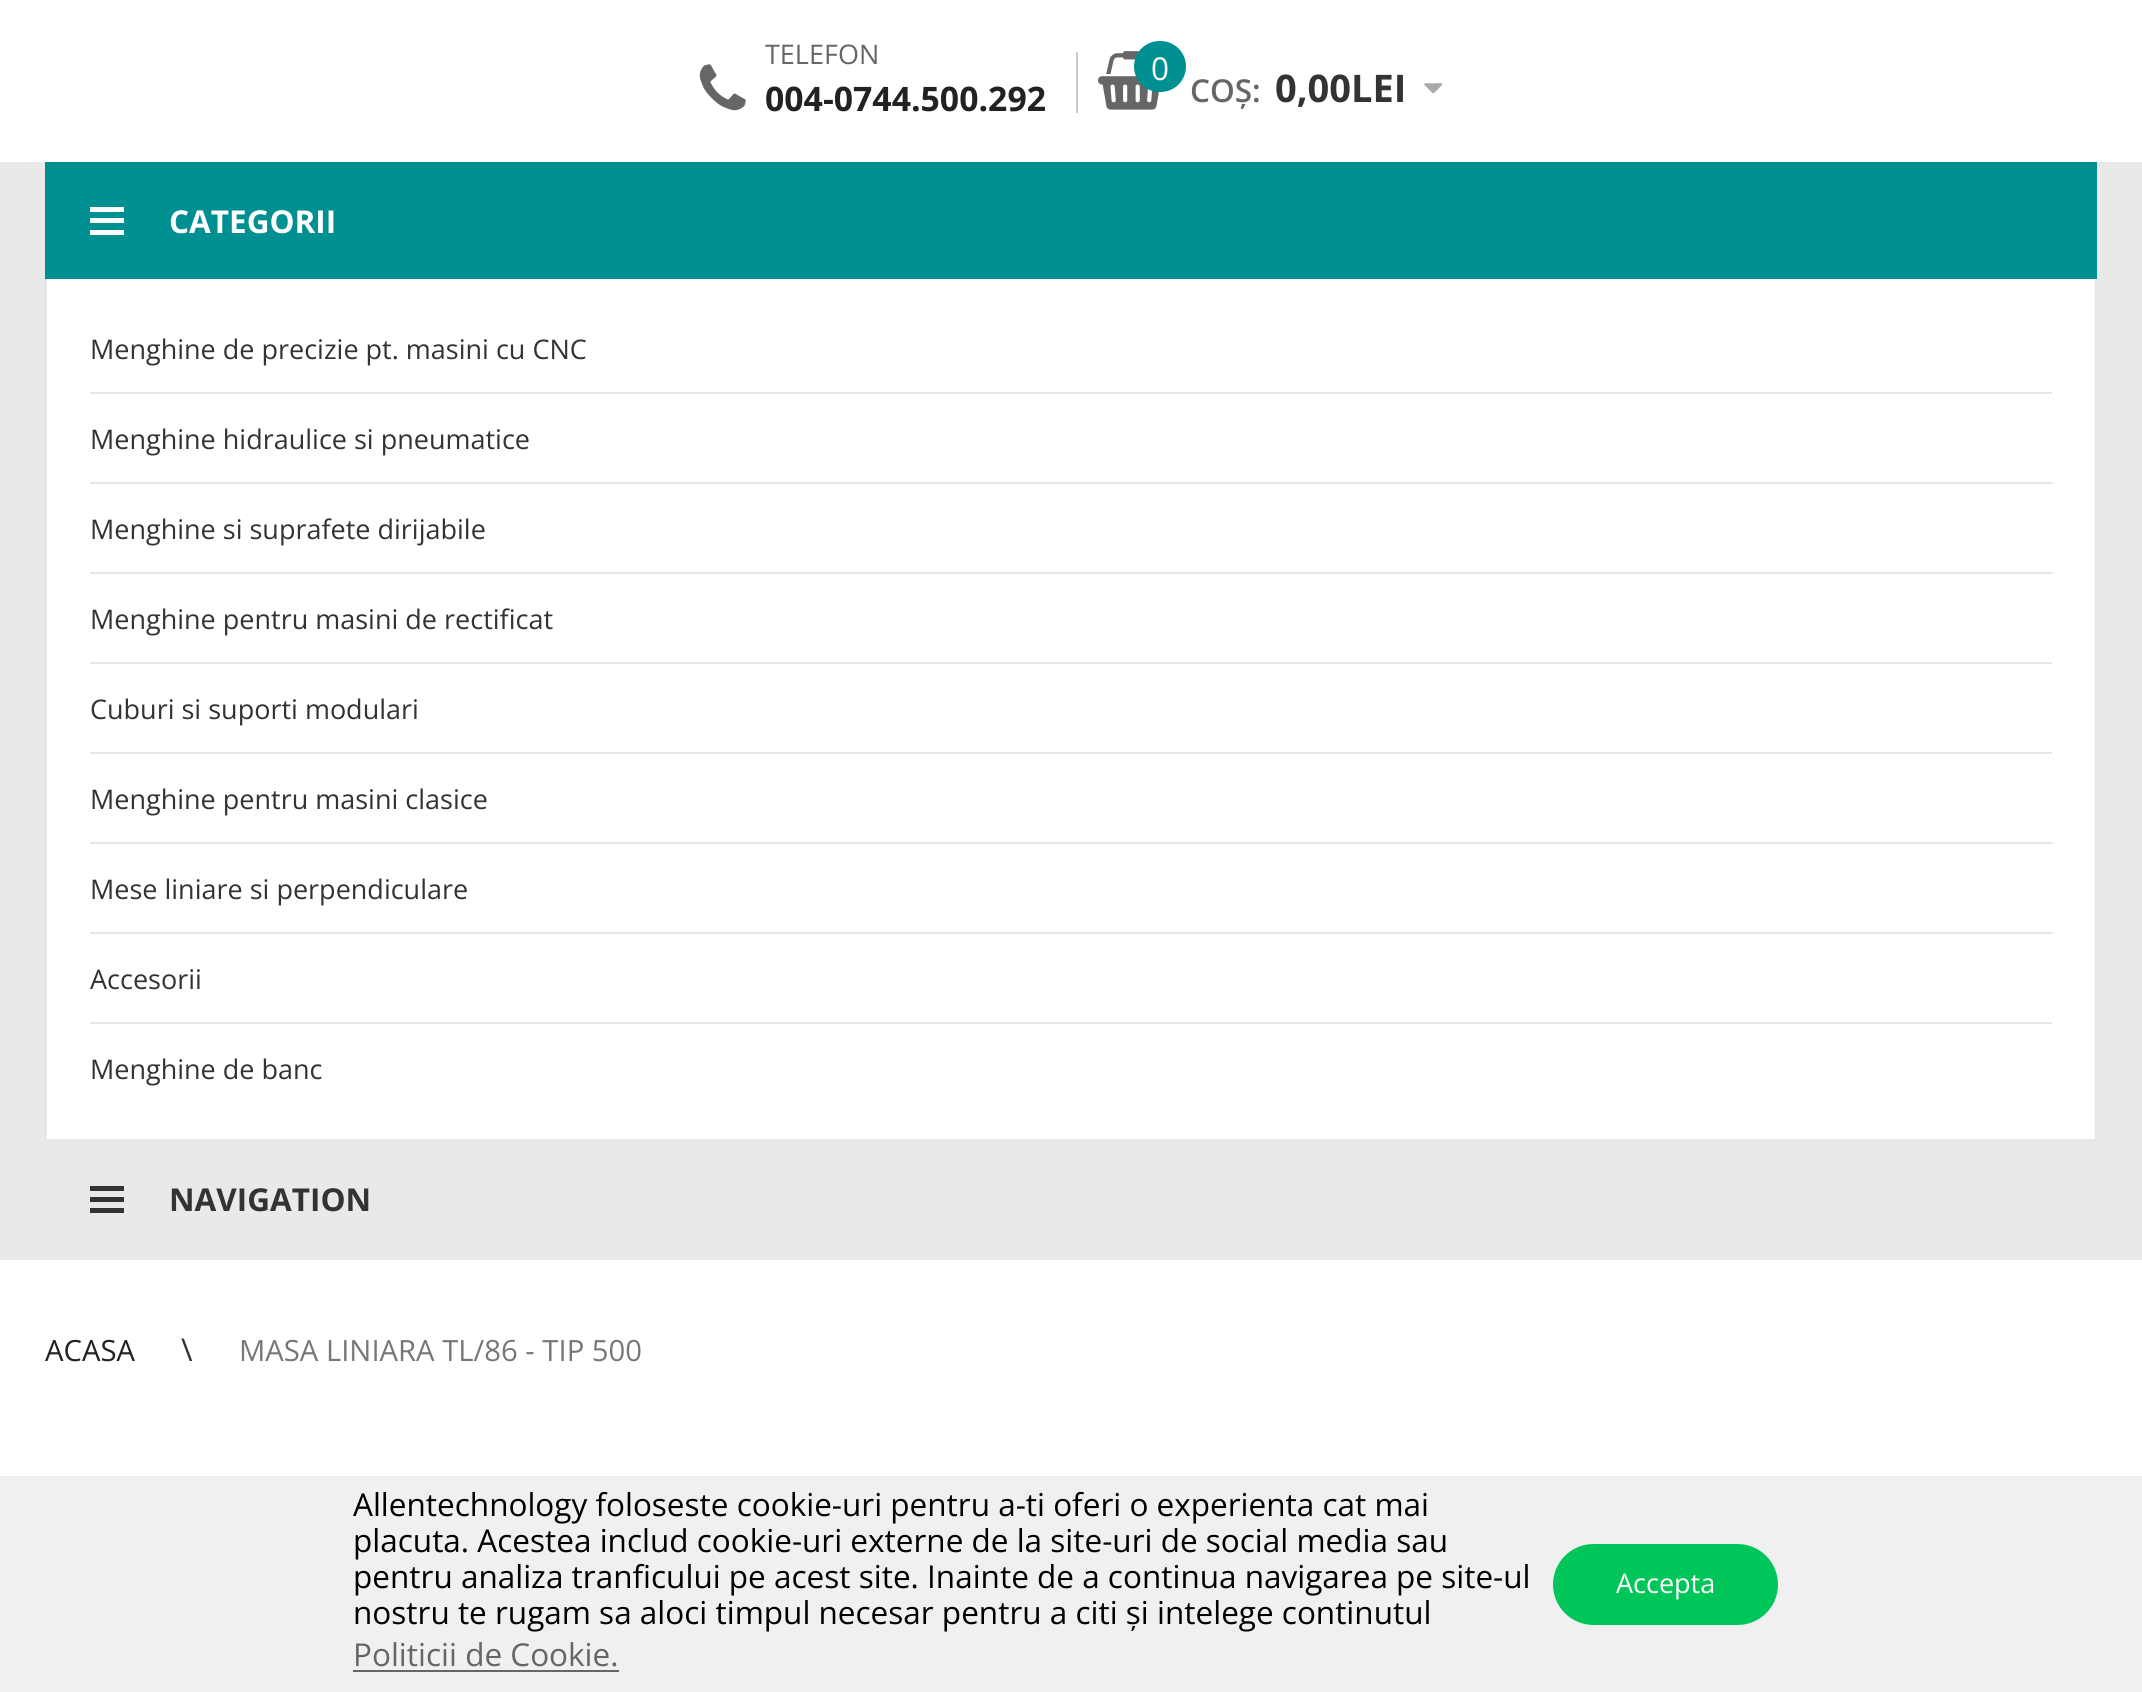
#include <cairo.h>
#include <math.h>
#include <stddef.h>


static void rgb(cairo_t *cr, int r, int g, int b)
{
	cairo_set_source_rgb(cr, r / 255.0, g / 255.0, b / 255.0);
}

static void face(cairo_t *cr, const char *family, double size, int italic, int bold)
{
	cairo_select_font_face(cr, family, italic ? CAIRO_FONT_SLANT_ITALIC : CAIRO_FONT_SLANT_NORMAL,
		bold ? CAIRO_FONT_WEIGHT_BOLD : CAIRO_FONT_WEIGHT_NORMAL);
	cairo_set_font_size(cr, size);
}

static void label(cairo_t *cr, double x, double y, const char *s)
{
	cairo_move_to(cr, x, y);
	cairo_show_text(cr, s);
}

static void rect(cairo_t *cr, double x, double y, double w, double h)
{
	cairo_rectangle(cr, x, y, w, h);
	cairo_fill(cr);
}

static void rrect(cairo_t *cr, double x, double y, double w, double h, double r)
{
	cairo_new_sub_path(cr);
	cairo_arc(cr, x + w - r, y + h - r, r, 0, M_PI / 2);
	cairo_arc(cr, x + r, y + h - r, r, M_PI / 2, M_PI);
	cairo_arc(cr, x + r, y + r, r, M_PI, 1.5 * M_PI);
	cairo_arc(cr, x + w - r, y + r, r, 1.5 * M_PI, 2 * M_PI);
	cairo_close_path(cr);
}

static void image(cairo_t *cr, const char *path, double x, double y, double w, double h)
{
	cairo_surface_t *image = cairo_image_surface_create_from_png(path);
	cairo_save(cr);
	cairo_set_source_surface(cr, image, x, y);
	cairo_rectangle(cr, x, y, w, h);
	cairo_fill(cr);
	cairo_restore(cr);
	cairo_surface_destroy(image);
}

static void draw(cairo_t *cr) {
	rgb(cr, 255, 255, 255);
	cairo_paint(cr);
	image(cr, "image0.png", 699, 64, 47, 47);
	face(cr, "Open Sans", 27, 0, 0);
	rgb(cr, 102, 102, 102);
	label(cr, 765, 64, "TELEFON");
	face(cr, "Open Sans", 33.75, 0, 1);
	rgb(cr, 34, 34, 34);
	label(cr, 765, 111, "004-0744.500.292");
	rgb(cr, 204, 204, 204);
	rect(cr, 1076, 52, 2, 61);
	image(cr, "image1.png", 1098, 51, 61, 59);
	rgb(cr, 0, 144, 145);
	rrect(cr, 1134, 41, 52, 51, 25.5);
	cairo_fill(cr);
	face(cr, "Open Sans", 31.5, 0, 0);
	rgb(cr, 255, 255, 255);
	label(cr, 1151, 80, "0");
	face(cr, "Open Sans SemiBold", 31.5, 0, 0);
	rgb(cr, 102, 102, 102);
	label(cr, 1190, 102, "COȘ:");
	face(cr, "Open Sans", 38, 0, 1);
	rgb(cr, 51, 51, 51);
	label(cr, 1275, 102, "0,00LEI");
	image(cr, "image2.png", 1424, 83, 19, 11);
	rgb(cr, 233, 233, 233);
	rect(cr, 0, 162, 2142, 1098);
	rgb(cr, 255, 255, 255);
	rect(cr, 47, 279, 2048, 860);
	cairo_rectangle(cr, 46, 276, 2050, 864);
	rgb(cr, 230, 230, 230);
	cairo_stroke(cr);
	rgb(cr, 0, 144, 145);
	rect(cr, 45, 162, 2052, 117);
	rgb(cr, 255, 255, 255);
	rect(cr, 90, 207, 34, 5);
	rect(cr, 90, 218, 34, 5);
	rect(cr, 90, 230, 34, 5);
	face(cr, "Open Sans", 31.5, 0, 1);
	label(cr, 169, 233, "CATEGORII");
	face(cr, "Open Sans", 27, 0, 0);
	rgb(cr, 51, 51, 51);
	label(cr, 90, 359, "Menghine de precizie pt. masini cu CNC");
	rgb(cr, 230, 230, 230);
	rect(cr, 90, 392, 1962, 2);
	rgb(cr, 51, 51, 51);
	label(cr, 90, 449, "Menghine hidraulice si pneumatice");
	rgb(cr, 230, 230, 230);
	rect(cr, 90, 482, 1962, 2);
	rgb(cr, 51, 51, 51);
	label(cr, 90, 539, "Menghine si suprafete dirijabile");
	rgb(cr, 230, 230, 230);
	rect(cr, 90, 572, 1962, 2);
	rgb(cr, 51, 51, 51);
	label(cr, 90, 629, "Menghine pentru masini de rectificat");
	rgb(cr, 230, 230, 230);
	rect(cr, 90, 662, 1962, 2);
	rgb(cr, 51, 51, 51);
	label(cr, 90, 719, "Cuburi si suporti modulari");
	rgb(cr, 230, 230, 230);
	rect(cr, 90, 752, 1962, 2);
	rgb(cr, 51, 51, 51);
	label(cr, 90, 809, "Menghine pentru masini clasice");
	rgb(cr, 230, 230, 230);
	rect(cr, 90, 842, 1962, 2);
	rgb(cr, 51, 51, 51);
	label(cr, 90, 899, "Mese liniare si perpendiculare");
	rgb(cr, 230, 230, 230);
	rect(cr, 90, 932, 1962, 2);
	rgb(cr, 51, 51, 51);
	label(cr, 90, 989, "Accesorii");
	rgb(cr, 230, 230, 230);
	rect(cr, 90, 1022, 1962, 2);
	rgb(cr, 51, 51, 51);
	label(cr, 90, 1079, "Menghine de banc");
	rect(cr, 90, 1186, 34, 5);
	rect(cr, 90, 1197, 34, 5);
	rect(cr, 90, 1208, 34, 5);
	face(cr, "Open Sans", 31.5, 0, 1);
	label(cr, 169, 1211, "NAVIGATION");
	face(cr, "Open Sans", 29.25, 0, 0);
	rgb(cr, 34, 34, 34);
	label(cr, 45, 1361, "ACASA");
	face(cr, "Open Sans", 31.5, 0, 0);
	rgb(cr, 51, 51, 51);
	label(cr, 181, 1361, "\\");
	face(cr, "Open Sans", 29.25, 0, 0);
	rgb(cr, 119, 119, 119);
	label(cr, 239, 1361, "MASA LINIARA TL/86 - TIP 500");
	rgb(cr, 240, 240, 240);
	rect(cr, 0, 1476, 2142, 216);
	face(cr, "Open Sans", 31.5, 0, 0);
	rgb(cr, 0, 0, 0);
	label(cr, 353, 1516, "Allentechnology foloseste cookie-uri pentru a-ti oferi o experienta cat mai");
	label(cr, 353, 1552, "placuta. Acestea includ cookie-uri externe de la site-uri de social media sau");
	label(cr, 353, 1588, "pentru analiza tranficului pe acest site. Inainte de a continua navigarea pe site-ul");
	label(cr, 353, 1624, "nostru te rugam sa aloci timpul necesar pentru a citi și intelege continutul");
	rgb(cr, 102, 102, 102);
	label(cr, 353, 1666, "Politicii de Cookie.");
	rect(cr, 353, 1670, 266, 2);
	rgb(cr, 0, 198, 89);
	rrect(cr, 1553, 1544, 225, 81, 40.5);
	cairo_fill(cr);
	face(cr, "Open Sans", 27, 0, 0);
	rgb(cr, 255, 255, 255);
	label(cr, 1616, 1593, "Accepta");
}

int main(void) {
	cairo_surface_t *surface = cairo_image_surface_create(CAIRO_FORMAT_RGB24, 2142, 1692);
	cairo_t *cr = cairo_create(surface);
	cairo_font_options_t *options = cairo_font_options_create();
	cairo_font_options_set_hint_metrics(options, CAIRO_HINT_METRICS_OFF);
	cairo_font_options_set_hint_style(options, CAIRO_HINT_STYLE_NONE);
	cairo_set_font_options(cr, options);
	cairo_set_miter_limit(cr, 4);
	draw(cr);
	cairo_surface_write_to_png(surface, "render.png");
	cairo_font_options_destroy(options);
	cairo_destroy(cr);
	cairo_surface_destroy(surface);
	return 0;
}
